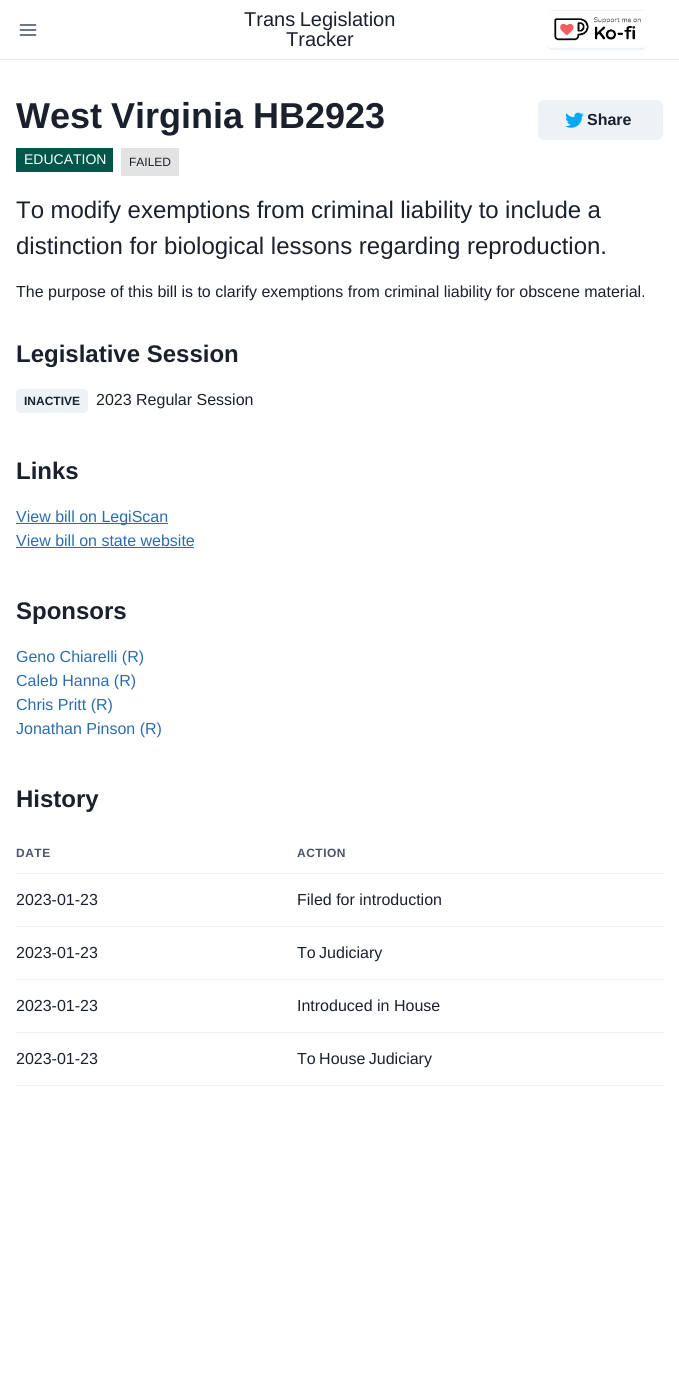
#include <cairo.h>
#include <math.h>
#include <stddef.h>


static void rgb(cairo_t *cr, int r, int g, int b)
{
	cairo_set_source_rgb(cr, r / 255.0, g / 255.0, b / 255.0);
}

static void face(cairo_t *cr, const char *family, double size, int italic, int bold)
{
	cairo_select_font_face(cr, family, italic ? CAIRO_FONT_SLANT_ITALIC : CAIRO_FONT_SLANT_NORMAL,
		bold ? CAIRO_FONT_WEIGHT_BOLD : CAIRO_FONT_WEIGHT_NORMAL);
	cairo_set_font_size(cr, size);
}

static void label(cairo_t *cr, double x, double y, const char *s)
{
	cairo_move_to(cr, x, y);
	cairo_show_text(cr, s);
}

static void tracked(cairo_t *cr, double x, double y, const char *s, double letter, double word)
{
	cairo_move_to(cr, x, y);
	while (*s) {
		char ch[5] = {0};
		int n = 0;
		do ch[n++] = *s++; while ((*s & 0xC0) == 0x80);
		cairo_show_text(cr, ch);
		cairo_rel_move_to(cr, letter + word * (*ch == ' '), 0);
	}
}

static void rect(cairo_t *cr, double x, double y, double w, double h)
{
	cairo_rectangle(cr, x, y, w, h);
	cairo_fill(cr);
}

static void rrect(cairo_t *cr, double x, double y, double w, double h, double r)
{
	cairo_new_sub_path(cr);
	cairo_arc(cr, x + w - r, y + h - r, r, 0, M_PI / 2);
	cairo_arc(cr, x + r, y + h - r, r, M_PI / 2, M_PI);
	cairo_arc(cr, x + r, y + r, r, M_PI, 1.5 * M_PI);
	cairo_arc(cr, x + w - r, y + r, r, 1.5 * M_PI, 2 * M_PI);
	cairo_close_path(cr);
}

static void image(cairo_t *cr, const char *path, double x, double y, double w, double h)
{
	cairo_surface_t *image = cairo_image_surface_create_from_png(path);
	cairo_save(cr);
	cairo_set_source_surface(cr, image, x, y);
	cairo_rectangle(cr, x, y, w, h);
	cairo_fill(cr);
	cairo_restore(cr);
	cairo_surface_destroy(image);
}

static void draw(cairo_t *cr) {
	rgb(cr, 255, 255, 255);
	cairo_paint(cr);
	rgb(cr, 226, 232, 240);
	rect(cr, 0, 59, 679, 1);
	image(cr, "image0.png", 19, 24, 18, 12);
	face(cr, "Liberation Sans", 20, 0, 0);
	rgb(cr, 26, 32, 44);
	tracked(cr, 244, 26, "Trans Legislation", 0, -1);
	label(cr, 286, 46, "Tracker");
	rgb(cr, 237, 242, 247);
	rrect(cr, 547, 10, 100, 40, 6);
	cairo_fill(cr);
	image(cr, "image1.png", 547, 11, 100, 37);
	face(cr, "Liberation Sans", 36, 0, 1);
	rgb(cr, 26, 32, 44);
	tracked(cr, 16, 128, "West Virginia", 0, -1);
	label(cr, 253, 128, "HB2923");
	rgb(cr, 0, 86, 73);
	rect(cr, 16, 148, 97, 24);
	face(cr, "Liberation Sans", 14, 0, 0);
	rgb(cr, 255, 255, 255);
	label(cr, 24, 164, "EDUCATION");
	rgb(cr, 227, 227, 227);
	rect(cr, 121, 148, 58, 28);
	face(cr, "Liberation Sans", 12, 0, 0);
	rgb(cr, 26, 32, 44);
	label(cr, 129, 166, "FAILED");
	rgb(cr, 237, 242, 247);
	rrect(cr, 538, 100, 125, 40, 6);
	cairo_fill(cr);
	image(cr, "image2.png", 565, 112, 19, 16);
	face(cr, "Liberation Sans", 16, 0, 1);
	rgb(cr, 26, 32, 44);
	label(cr, 587, 125, "Share");
	face(cr, "Liberation Sans", 24, 0, 0);
	tracked(cr, 16, 218, "To modify exemptions from criminal liability to include a", 0, -0.25);
	label(cr, 16, 254, "distinction for biological lessons regarding reproduction.");
	face(cr, "Liberation Sans", 16, 0, 0);
	label(cr, 16, 297, "The purpose of this bill is to clarify exemptions from criminal liability for obscene material.");
	face(cr, "Liberation Sans", 24, 0, 1);
	label(cr, 16, 362, "Legislative Session");
	rgb(cr, 237, 242, 247);
	rrect(cr, 16, 389, 72, 24, 4);
	cairo_fill(cr);
	face(cr, "Liberation Sans", 12, 0, 1);
	rgb(cr, 26, 32, 44);
	label(cr, 24, 405, "INACTIVE");
	face(cr, "Liberation Sans", 16, 0, 0);
	label(cr, 96, 405, "2023 Regular Session");
	face(cr, "Liberation Sans", 24, 0, 1);
	label(cr, 16, 479, "Links");
	rgb(cr, 43, 108, 176);
	rect(cr, 16, 523, 152, 1);
	face(cr, "Liberation Sans", 16, 0, 0);
	label(cr, 16, 522, "View bill on LegiScan");
	label(cr, 16, 546, "View bill on state website");
	rect(cr, 16, 547, 178, 1);
	face(cr, "Liberation Sans", 24, 0, 1);
	rgb(cr, 26, 32, 44);
	label(cr, 16, 619, "Sponsors");
	face(cr, "Liberation Sans", 16, 0, 0);
	rgb(cr, 43, 108, 176);
	label(cr, 16, 662, "Geno Chiarelli (R)");
	label(cr, 16, 686, "Caleb Hanna (R)");
	label(cr, 16, 710, "Chris Pritt (R)");
	label(cr, 16, 734, "Jonathan Pinson (R)");
	face(cr, "Liberation Sans", 24, 0, 1);
	rgb(cr, 26, 32, 44);
	label(cr, 16, 807, "History");
	face(cr, "Liberation Sans", 12, 0, 1);
	rgb(cr, 74, 85, 104);
	tracked(cr, 16, 857, "DATE", 0.5, 0);
	rgb(cr, 237, 242, 247);
	rect(cr, 16, 873, 648, 1);
	rgb(cr, 74, 85, 104);
	tracked(cr, 297, 857, "ACTION", 0.5, 0);
	face(cr, "Liberation Sans", 16, 0, 0);
	rgb(cr, 26, 32, 44);
	label(cr, 16, 905, "2023-01-23");
	rgb(cr, 237, 242, 247);
	rect(cr, 16, 926, 648, 1);
	rgb(cr, 26, 32, 44);
	label(cr, 297, 905, "Filed for introduction");
	label(cr, 16, 958, "2023-01-23");
	rgb(cr, 237, 242, 247);
	rect(cr, 16, 979, 648, 1);
	rgb(cr, 26, 32, 44);
	tracked(cr, 297, 958, "To Judiciary", 0, -1);
	label(cr, 16, 1011, "2023-01-23");
	rgb(cr, 237, 242, 247);
	rect(cr, 16, 1032, 648, 1);
	rgb(cr, 26, 32, 44);
	label(cr, 297, 1011, "Introduced in House");
	label(cr, 16, 1064, "2023-01-23");
	rgb(cr, 237, 242, 247);
	rect(cr, 16, 1085, 648, 1);
	rgb(cr, 26, 32, 44);
	tracked(cr, 297, 1064, "To House Judiciary", 0, -1);
}

int main(void) {
	cairo_surface_t *surface = cairo_image_surface_create(CAIRO_FORMAT_RGB24, 679, 1392);
	cairo_t *cr = cairo_create(surface);
	cairo_font_options_t *options = cairo_font_options_create();
	cairo_font_options_set_hint_metrics(options, CAIRO_HINT_METRICS_OFF);
	cairo_font_options_set_hint_style(options, CAIRO_HINT_STYLE_NONE);
	cairo_set_font_options(cr, options);
	cairo_set_miter_limit(cr, 4);
	draw(cr);
	cairo_surface_write_to_png(surface, "render.png");
	cairo_font_options_destroy(options);
	cairo_destroy(cr);
	cairo_surface_destroy(surface);
	return 0;
}
